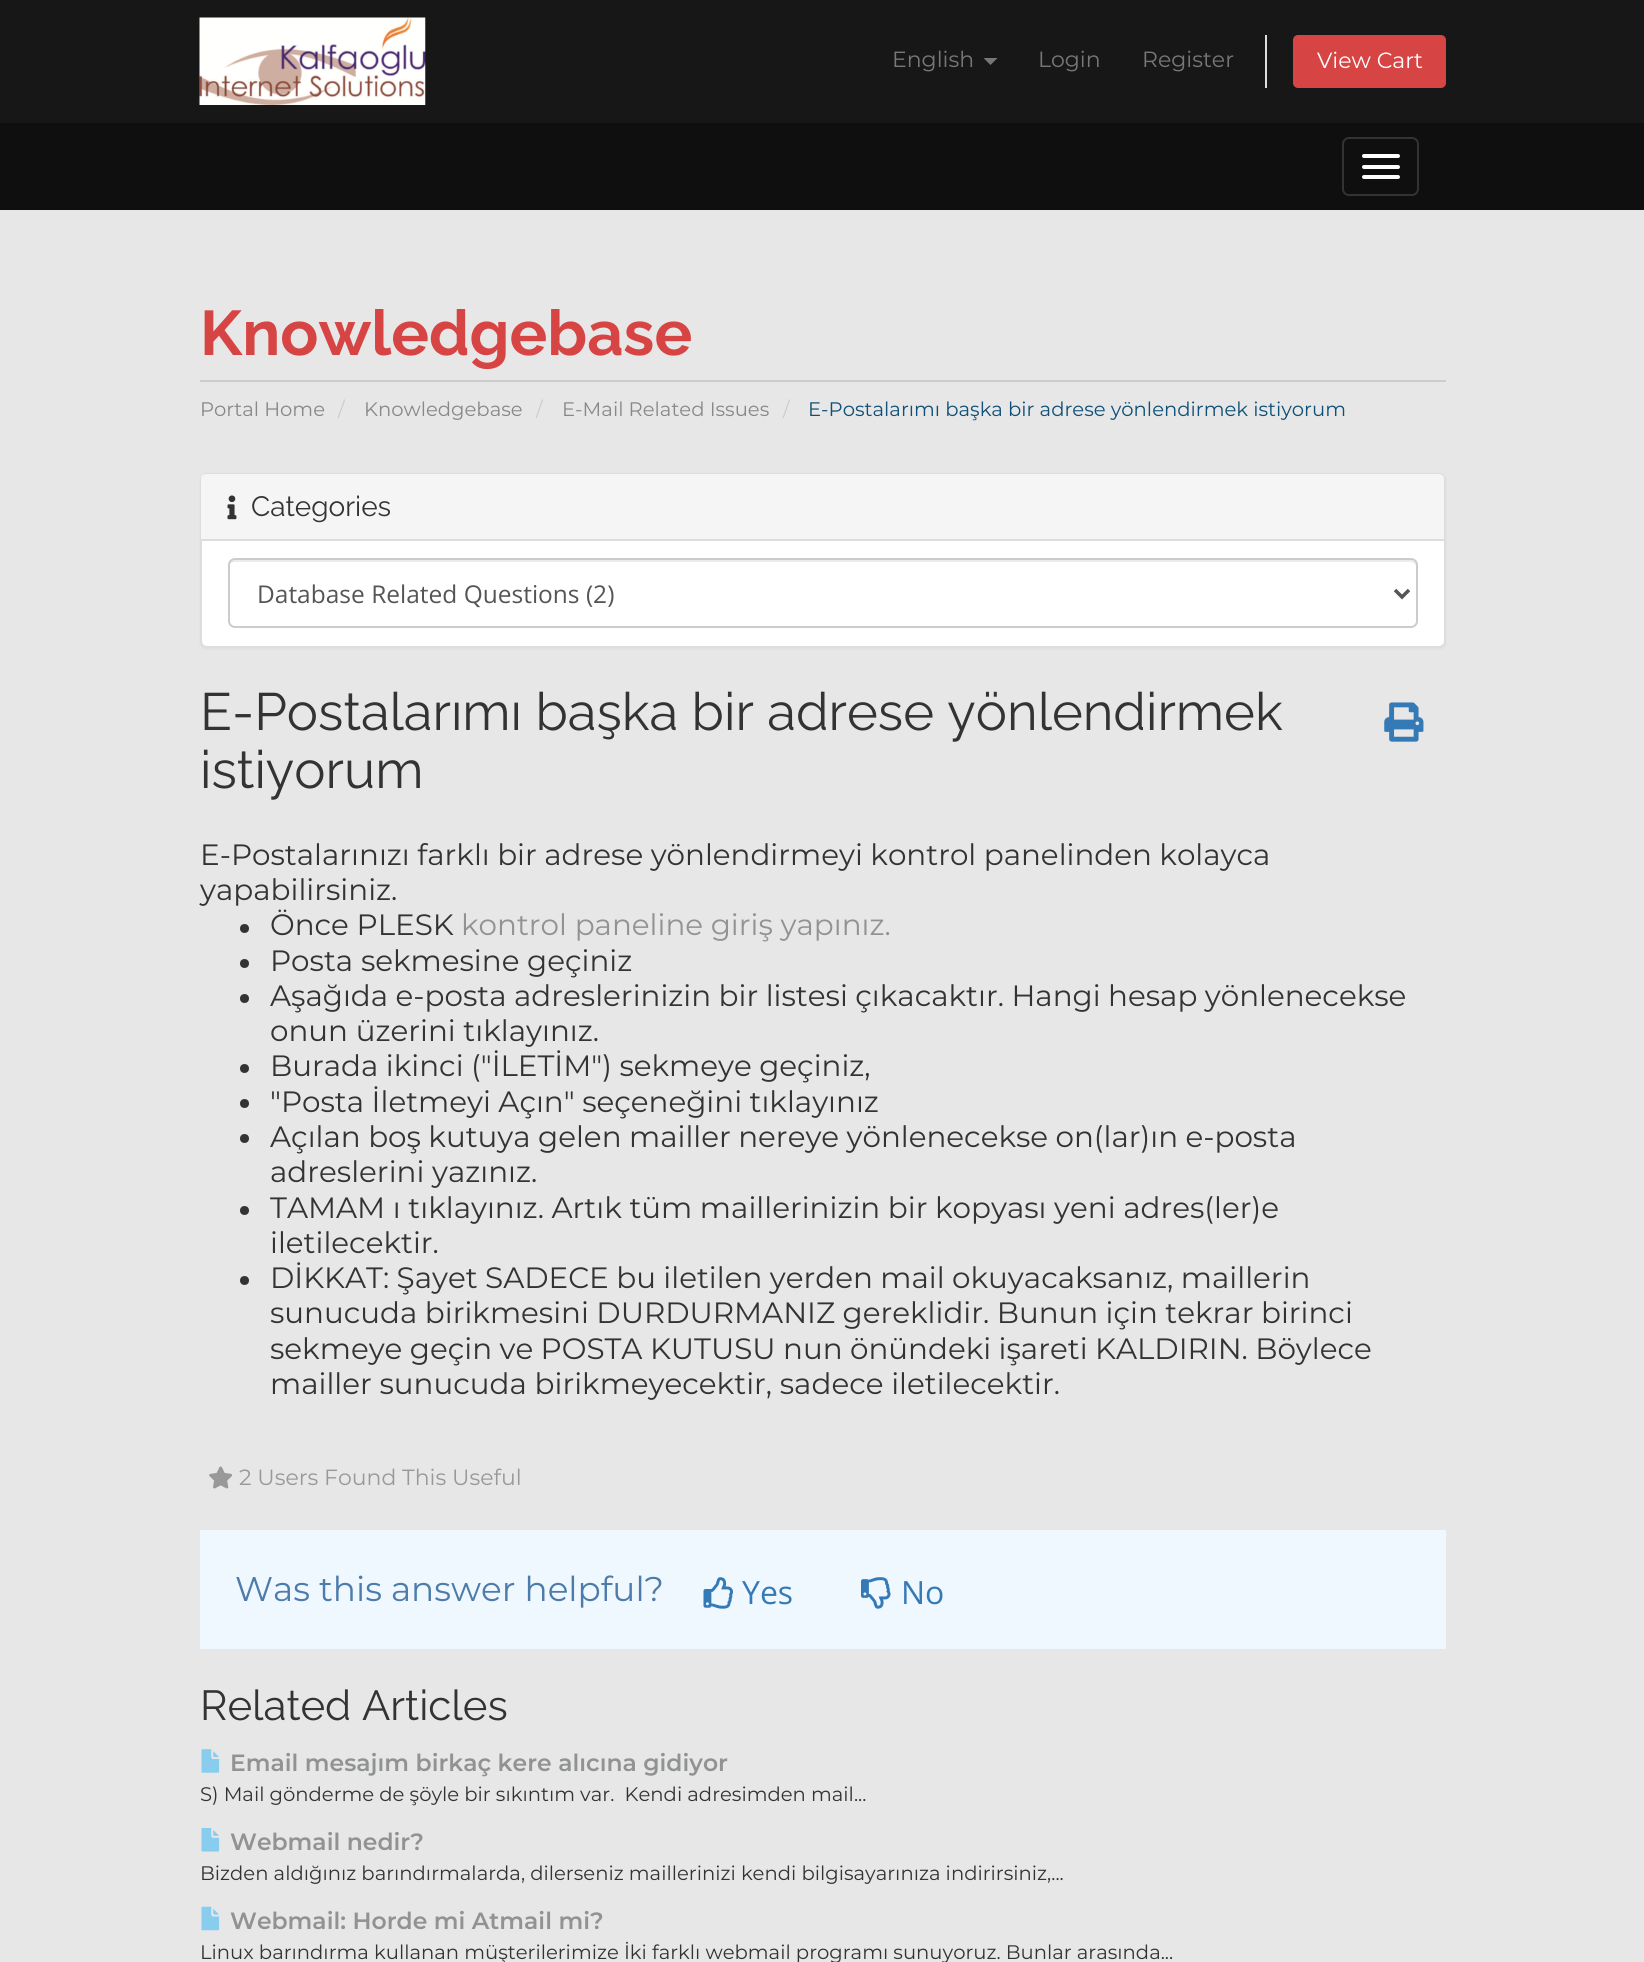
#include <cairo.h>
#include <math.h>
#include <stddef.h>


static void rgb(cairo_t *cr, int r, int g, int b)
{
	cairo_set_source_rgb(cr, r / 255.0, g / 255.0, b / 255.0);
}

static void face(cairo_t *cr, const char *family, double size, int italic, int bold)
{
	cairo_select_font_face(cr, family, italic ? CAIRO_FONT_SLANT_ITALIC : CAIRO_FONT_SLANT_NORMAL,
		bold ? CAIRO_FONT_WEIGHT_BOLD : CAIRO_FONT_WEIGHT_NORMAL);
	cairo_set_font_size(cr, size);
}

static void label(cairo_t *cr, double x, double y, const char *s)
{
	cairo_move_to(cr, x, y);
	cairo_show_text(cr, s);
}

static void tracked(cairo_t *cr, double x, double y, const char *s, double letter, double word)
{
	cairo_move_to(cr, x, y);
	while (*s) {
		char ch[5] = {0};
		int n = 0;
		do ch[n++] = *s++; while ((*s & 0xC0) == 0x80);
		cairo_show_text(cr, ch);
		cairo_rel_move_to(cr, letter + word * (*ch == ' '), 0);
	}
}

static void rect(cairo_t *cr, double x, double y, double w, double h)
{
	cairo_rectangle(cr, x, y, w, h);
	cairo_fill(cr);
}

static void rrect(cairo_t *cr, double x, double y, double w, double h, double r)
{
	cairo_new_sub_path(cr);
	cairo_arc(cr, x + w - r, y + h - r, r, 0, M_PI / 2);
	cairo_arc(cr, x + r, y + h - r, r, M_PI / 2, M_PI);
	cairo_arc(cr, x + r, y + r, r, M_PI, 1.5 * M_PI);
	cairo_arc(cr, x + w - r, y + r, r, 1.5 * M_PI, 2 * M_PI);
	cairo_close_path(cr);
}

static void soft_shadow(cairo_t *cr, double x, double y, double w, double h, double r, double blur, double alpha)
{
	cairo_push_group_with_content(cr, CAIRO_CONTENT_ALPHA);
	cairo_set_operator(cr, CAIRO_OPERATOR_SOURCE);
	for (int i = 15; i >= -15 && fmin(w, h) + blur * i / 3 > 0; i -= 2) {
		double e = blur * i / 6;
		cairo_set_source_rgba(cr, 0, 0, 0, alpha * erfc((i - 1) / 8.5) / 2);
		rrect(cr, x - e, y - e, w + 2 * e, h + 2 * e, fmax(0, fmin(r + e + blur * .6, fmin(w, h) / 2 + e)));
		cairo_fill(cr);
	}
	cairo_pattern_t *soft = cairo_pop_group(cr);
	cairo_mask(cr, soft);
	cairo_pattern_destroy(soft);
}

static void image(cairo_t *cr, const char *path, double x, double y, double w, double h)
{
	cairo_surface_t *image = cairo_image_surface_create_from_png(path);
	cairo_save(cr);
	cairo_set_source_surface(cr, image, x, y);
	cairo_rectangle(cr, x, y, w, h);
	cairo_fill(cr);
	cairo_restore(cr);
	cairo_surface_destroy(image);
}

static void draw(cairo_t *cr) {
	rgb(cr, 231, 231, 231);
	cairo_paint(cr);
	rgb(cr, 23, 23, 23);
	rect(cr, 0, 0, 1644, 123);
	image(cr, "image0.png", 199, 17, 227, 88);
	face(cr, "Montserrat", 22, 0, 0);
	rgb(cr, 119, 119, 119);
	label(cr, 892, 67, "English");
	cairo_new_path(cr);
	cairo_move_to(cr, 983.5, 58);
	cairo_line_to(cr, 997.5, 58);
	cairo_line_to(cr, 990.5, 65);
	cairo_close_path(cr);
	cairo_fill(cr);
	label(cr, 1038, 67, "Login");
	label(cr, 1142, 67, "Register");
	rgb(cr, 221, 221, 221);
	rect(cr, 1265, 35, 2, 53);
	rgb(cr, 215, 68, 68);
	rrect(cr, 1293, 35, 153, 53, 5);
	cairo_fill(cr);
	rgb(cr, 255, 255, 255);
	label(cr, 1317, 68, "View Cart");
	rgb(cr, 15, 15, 15);
	rect(cr, 0, 123, 1644, 87);
	rrect(cr, 1343, 138, 75, 57, 6);
	rgb(cr, 51, 51, 51);
	cairo_stroke(cr);
	rgb(cr, 255, 255, 255);
	rrect(cr, 1362, 154, 38, 4, 2);
	cairo_fill(cr);
	rrect(cr, 1362, 165, 38, 4, 2);
	cairo_fill(cr);
	rrect(cr, 1362, 175, 38, 4, 2);
	cairo_fill(cr);
	rgb(cr, 204, 204, 204);
	rect(cr, 200, 380, 1246, 2);
	face(cr, "Raleway", 63, 0, 1);
	rgb(cr, 215, 68, 68);
	label(cr, 200, 355, "Knowledgebase");
	face(cr, "Montserrat", 19.6, 0, 0);
	rgb(cr, 136, 136, 136);
	label(cr, 200, 416, "Portal Home");
	rgb(cr, 204, 204, 204);
	label(cr, 338, 416, "/");
	rgb(cr, 136, 136, 136);
	label(cr, 364, 416, "Knowledgebase");
	rgb(cr, 204, 204, 204);
	label(cr, 536, 416, "/");
	rgb(cr, 136, 136, 136);
	label(cr, 562, 416, "E-Mail Related Issues");
	rgb(cr, 204, 204, 204);
	label(cr, 783, 416, "/");
	rgb(cr, 14, 80, 119);
	label(cr, 808, 416, "E-Postalarımı başka bir adrese yönlendirmek istiyorum");
	rgb(cr, 0, 0, 0);
	soft_shadow(cr, 200, 474, 1246, 175, 7, 1, 0.05);
	rgb(cr, 255, 255, 255);
	rrect(cr, 201, 474, 1244, 173, 6);
	cairo_fill_preserve(cr);
	rgb(cr, 221, 221, 221);
	cairo_stroke(cr);
	rgb(cr, 245, 245, 245);
	cairo_new_path(cr);
	cairo_move_to(cr, 206, 474);
	cairo_line_to(cr, 1439, 474);
	cairo_curve_to(cr, 1442, 474, 1444, 476, 1444, 479);
	cairo_line_to(cr, 1444, 541);
	cairo_line_to(cr, 201, 541);
	cairo_line_to(cr, 201, 479);
	cairo_curve_to(cr, 201, 476, 203, 474, 206, 474);
	cairo_close_path(cr);
	cairo_fill(cr);
	rgb(cr, 221, 221, 221);
	rect(cr, 201, 539, 1243, 2);
	image(cr, "image1.png", 227, 495, 10, 25);
	face(cr, "Raleway", 28, 0, 0);
	rgb(cr, 51, 51, 51);
	label(cr, 251, 516, "Categories");
	rgb(cr, 236, 236, 236);
	cairo_new_path(cr);
	cairo_move_to(cr, 234, 562);
	cairo_line_to(cr, 1410, 562);
	cairo_curve_to(cr, 1413, 562, 1416, 564, 1416, 567);
	cairo_line_to(cr, 1416, 565);
	cairo_curve_to(cr, 1416, 562, 1414, 560, 1411, 560);
	cairo_line_to(cr, 234, 560);
	cairo_curve_to(cr, 231, 560, 229, 562, 229, 565);
	cairo_line_to(cr, 229, 567);
	cairo_curve_to(cr, 229, 564, 232, 562, 234, 562);
	cairo_close_path(cr);
	cairo_fill(cr);
	rrect(cr, 229, 559, 1188, 68, 6);
	rgb(cr, 204, 204, 204);
	cairo_stroke(cr);
	cairo_new_path(cr);
	cairo_move_to(cr, 1395, 590);
	cairo_line_to(cr, 1402, 597);
	cairo_line_to(cr, 1409, 590);
	rgb(cr, 85, 85, 85);
	cairo_set_line_width(cr, 3.5);
	cairo_stroke(cr);
	face(cr, "Open Sans", 24.5, 0, 0);
	label(cr, 257, 603, "Database Related Questions (2)");
	face(cr, "Raleway", 52.5, 0, 0);
	rgb(cr, 51, 51, 51);
	label(cr, 200, 730, "E-Postalarımı başka bir adrese yönlendirmek");
	label(cr, 200, 788, "istiyorum");
	image(cr, "image2.png", 1384, 702, 40, 40);
	face(cr, "Montserrat", 29.4, 0, 0);
	tracked(cr, 200, 865, "E-Postalarınızı farklı bir adrese yönlendirmeyi kontrol panelinden kolayca", 0, -0.25);
	label(cr, 200, 900, "yapabilirsiniz.");
	cairo_new_path(cr);
	cairo_arc(cr, 244.5, 928.5, 4.5, 0, 2 * M_PI);
	cairo_fill(cr);
	label(cr, 270, 935, "Önce PLESK");
	rgb(cr, 145, 147, 147);
	label(cr, 461, 935, "kontrol paneline giriş yapınız.");
	rgb(cr, 51, 51, 51);
	cairo_new_path(cr);
	cairo_arc(cr, 244.5, 963.5, 4.5, 0, 2 * M_PI);
	cairo_fill(cr);
	label(cr, 270, 971, "Posta sekmesine geçiniz");
	cairo_new_path(cr);
	cairo_arc(cr, 244.5, 998.5, 4.5, 0, 2 * M_PI);
	cairo_fill(cr);
	tracked(cr, 270, 1006, "Aşağıda e-posta adreslerinizin bir listesi çıkacaktır. Hangi hesap yönlenecekse", 0, -0.25);
	label(cr, 270, 1041, "onun üzerini tıklayınız.");
	cairo_new_path(cr);
	cairo_arc(cr, 244.5, 1068.5, 4.5, 0, 2 * M_PI);
	cairo_fill(cr);
	tracked(cr, 270, 1076, "Burada ikinci (\"İLETİM\") sekmeye geçiniz,", 0, -0.25);
	cairo_new_path(cr);
	cairo_arc(cr, 244.5, 1103.5, 4.5, 0, 2 * M_PI);
	cairo_fill(cr);
	tracked(cr, 270, 1112, "\"Posta İletmeyi Açın\" seçeneğini tıklayınız", 0, -0.25);
	cairo_new_path(cr);
	cairo_arc(cr, 244.5, 1138.5, 4.5, 0, 2 * M_PI);
	cairo_fill(cr);
	tracked(cr, 270, 1147, "Açılan boş kutuya gelen mailler nereye yönlenecekse on(lar)ın e-posta", 0, -0.25);
	label(cr, 270, 1182, "adreslerini yazınız.");
	cairo_new_path(cr);
	cairo_arc(cr, 244.5, 1210.5, 4.5, 0, 2 * M_PI);
	cairo_fill(cr);
	tracked(cr, 270, 1218, "TAMAM ı tıklayınız. Artık tüm maillerinizin bir kopyası yeni adres(ler)e", 0, -0.1);
	label(cr, 270, 1253, "iletilecektir.");
	cairo_new_path(cr);
	cairo_arc(cr, 244.5, 1280.5, 4.5, 0, 2 * M_PI);
	cairo_fill(cr);
	tracked(cr, 270, 1288, "DİKKAT: Şayet SADECE bu iletilen yerden mail okuyacaksanız, maillerin", 0, -0.25);
	tracked(cr, 270, 1323, "sunucuda birikmesini DURDURMANIZ gereklidir. Bunun için tekrar birinci", 0, -0.25);
	tracked(cr, 270, 1359, "sekmeye geçin ve POSTA KUTUSU nun önündeki işareti KALDIRIN. Böylece", 0, -0.25);
	label(cr, 270, 1394, "mailler sunucuda birikmeyecektir, sadece iletilecektir.");
	image(cr, "image3.png", 209, 1466, 24, 23);
	face(cr, "Montserrat", 22, 0, 0);
	rgb(cr, 153, 153, 153);
	label(cr, 239, 1485, "2 Users Found This Useful");
	rgb(cr, 239, 247, 255);
	rect(cr, 200, 1530, 1246, 119);
	face(cr, "Montserrat", 34.25, 0, 0);
	rgb(cr, 77, 124, 171);
	label(cr, 235, 1601, "Was this answer helpful?");
	image(cr, "image4.png", 703, 1577, 30, 32);
	face(cr, "Open Sans", 32, 0, 0);
	rgb(cr, 51, 122, 183);
	label(cr, 742, 1604, "Yes");
	image(cr, "image5.png", 861, 1577, 30, 32);
	label(cr, 901, 1604, "No");
	face(cr, "Raleway", 42, 0, 0);
	rgb(cr, 51, 51, 51);
	label(cr, 200, 1720, "Related Articles");
	image(cr, "image6.png", 201, 1749, 19, 24);
	face(cr, "Montserrat SemiBold", 23.5, 0, 0);
	rgb(cr, 145, 147, 147);
	label(cr, 230, 1771, "Email mesajım birkaç kere alıcına gidiyor");
	face(cr, "Montserrat", 19.6, 0, 0);
	rgb(cr, 51, 51, 51);
	label(cr, 200, 1801, "S) Mail gönderme de şöyle bir sıkıntım var.  Kendi adresimden mail...");
	image(cr, "image7.png", 201, 1828, 19, 24);
	face(cr, "Montserrat SemiBold", 23.5, 0, 0);
	rgb(cr, 145, 147, 147);
	label(cr, 230, 1850, "Webmail nedir?");
	face(cr, "Montserrat", 19.6, 0, 0);
	rgb(cr, 51, 51, 51);
	label(cr, 200, 1880, "Bizden aldığınız barındırmalarda, dilerseniz maillerinizi kendi bilgisayarınıza indirirsiniz,...");
	image(cr, "image8.png", 201, 1906, 19, 25);
	face(cr, "Montserrat SemiBold", 23.5, 0, 0);
	rgb(cr, 145, 147, 147);
	label(cr, 230, 1929, "Webmail: Horde mi Atmail mi?");
	face(cr, "Montserrat", 19.6, 0, 0);
	rgb(cr, 51, 51, 51);
	label(cr, 200, 1959, "Linux barındırma kullanan müşterilerimize İki farklı webmail programı sunuyoruz. Bunlar arasında...");
}

int main(void) {
	cairo_surface_t *surface = cairo_image_surface_create(CAIRO_FORMAT_RGB24, 1644, 1962);
	cairo_t *cr = cairo_create(surface);
	cairo_font_options_t *options = cairo_font_options_create();
	cairo_font_options_set_hint_metrics(options, CAIRO_HINT_METRICS_OFF);
	cairo_font_options_set_hint_style(options, CAIRO_HINT_STYLE_NONE);
	cairo_set_font_options(cr, options);
	cairo_set_miter_limit(cr, 4);
	draw(cr);
	cairo_surface_write_to_png(surface, "render.png");
	cairo_font_options_destroy(options);
	cairo_destroy(cr);
	cairo_surface_destroy(surface);
	return 0;
}
